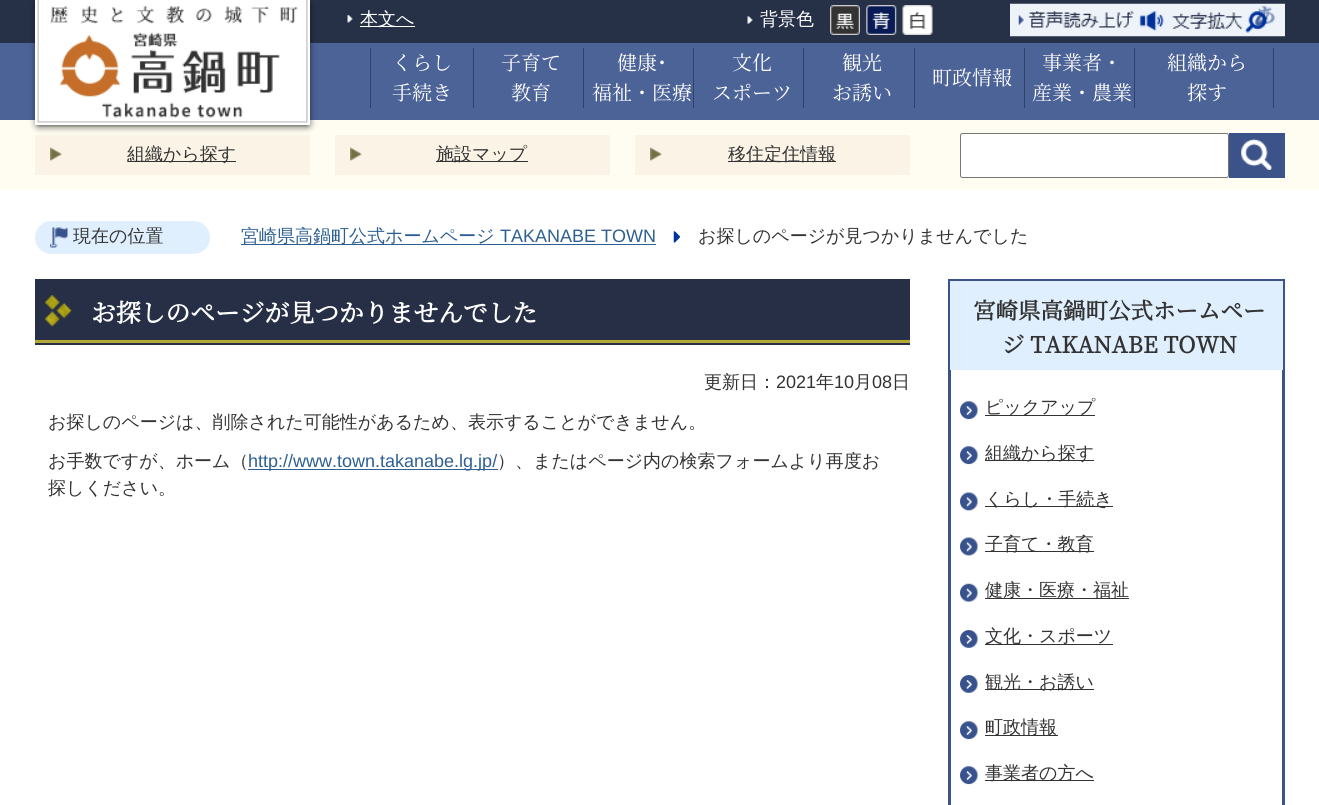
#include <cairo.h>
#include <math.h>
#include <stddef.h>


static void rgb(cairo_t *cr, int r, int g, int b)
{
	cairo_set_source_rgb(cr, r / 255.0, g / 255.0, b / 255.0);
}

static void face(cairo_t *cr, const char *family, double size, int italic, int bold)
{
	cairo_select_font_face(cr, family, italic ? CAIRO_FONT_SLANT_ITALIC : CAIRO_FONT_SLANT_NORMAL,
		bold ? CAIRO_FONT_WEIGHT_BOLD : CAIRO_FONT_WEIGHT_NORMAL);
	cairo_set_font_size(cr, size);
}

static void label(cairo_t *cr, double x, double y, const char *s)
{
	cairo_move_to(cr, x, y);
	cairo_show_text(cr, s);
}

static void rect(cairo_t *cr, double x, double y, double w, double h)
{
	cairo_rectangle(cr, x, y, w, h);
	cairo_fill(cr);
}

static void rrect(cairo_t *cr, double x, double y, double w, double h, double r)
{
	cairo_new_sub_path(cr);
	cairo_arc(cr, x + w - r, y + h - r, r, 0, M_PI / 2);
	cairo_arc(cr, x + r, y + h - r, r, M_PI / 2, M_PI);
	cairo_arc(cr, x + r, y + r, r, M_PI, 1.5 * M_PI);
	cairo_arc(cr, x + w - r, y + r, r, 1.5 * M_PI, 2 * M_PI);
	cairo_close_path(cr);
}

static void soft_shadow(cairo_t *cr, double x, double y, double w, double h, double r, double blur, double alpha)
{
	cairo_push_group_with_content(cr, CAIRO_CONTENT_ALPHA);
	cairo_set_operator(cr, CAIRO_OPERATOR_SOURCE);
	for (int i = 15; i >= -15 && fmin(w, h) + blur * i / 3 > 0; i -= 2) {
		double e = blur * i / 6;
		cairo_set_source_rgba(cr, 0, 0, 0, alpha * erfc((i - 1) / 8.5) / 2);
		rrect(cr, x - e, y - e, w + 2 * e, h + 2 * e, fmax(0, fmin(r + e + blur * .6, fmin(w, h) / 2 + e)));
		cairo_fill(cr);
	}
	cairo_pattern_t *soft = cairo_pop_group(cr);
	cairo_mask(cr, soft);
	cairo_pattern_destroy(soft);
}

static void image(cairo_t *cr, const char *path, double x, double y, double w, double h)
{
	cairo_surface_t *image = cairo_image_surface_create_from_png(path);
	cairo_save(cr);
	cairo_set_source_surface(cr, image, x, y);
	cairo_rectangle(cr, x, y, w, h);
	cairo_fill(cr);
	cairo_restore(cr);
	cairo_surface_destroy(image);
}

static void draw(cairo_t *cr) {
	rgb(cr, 255, 255, 255);
	cairo_paint(cr);
	rgb(cr, 76, 99, 152);
	rect(cr, 0, 43, 1319, 77);
	rgb(cr, 38, 49, 72);
	rect(cr, 0, 0, 1319, 43);
	rgb(cr, 255, 253, 242);
	rect(cr, 0, 120, 1319, 70);
	rgb(cr, 250, 243, 230);
	rect(cr, 35, 135, 275, 40);
	rgb(cr, 0, 0, 0);
	soft_shadow(cr, 38, 5, 270, 120, 0, 4, 1);
	image(cr, "image0.png", 35, 0, 275, 125);
	image(cr, "image1.png", 347, 15, 6, 8);
	rgb(cr, 255, 255, 255);
	rect(cr, 360, 26, 55, 1);
	face(cr, "WenQuanYi Zen Hei Medium", 18, 0, 0);
	label(cr, 360, 25, "本文へ");
	image(cr, "image2.png", 747, 16, 6, 8);
	label(cr, 760, 25, "背景色");
	image(cr, "image3.png", 830, 5, 30, 30);
	image(cr, "image4.png", 866, 5, 31, 30);
	image(cr, "image5.png", 902, 5, 31, 30);
	image(cr, "image6.png", 1010, 3, 275, 34);
	rgb(cr, 47, 65, 104);
	rect(cr, 473, 48, 1, 60);
	rect(cr, 370, 48, 1, 60);
	face(cr, "Noto Serif JP", 20, 0, 0);
	rgb(cr, 255, 255, 255);
	label(cr, 392, 70, "くらし");
	label(cr, 392, 100, "手続き");
	rgb(cr, 47, 65, 104);
	rect(cr, 583, 48, 1, 60);
	rgb(cr, 255, 255, 255);
	label(cr, 501, 70, "子育て");
	label(cr, 511, 100, "教育");
	rgb(cr, 47, 65, 104);
	rect(cr, 693, 48, 1, 60);
	rgb(cr, 255, 255, 255);
	label(cr, 617, 70, "健康･");
	label(cr, 592, 100, "福祉・医療");
	rgb(cr, 47, 65, 104);
	rect(cr, 803, 48, 1, 60);
	rgb(cr, 255, 255, 255);
	label(cr, 732, 70, "文化");
	label(cr, 712, 100, "スポーツ");
	rgb(cr, 47, 65, 104);
	rect(cr, 914, 48, 1, 60);
	rgb(cr, 255, 255, 255);
	label(cr, 842, 70, "観光");
	label(cr, 832, 100, "お誘い");
	rgb(cr, 47, 65, 104);
	rect(cr, 1024, 48, 1, 60);
	rgb(cr, 255, 255, 255);
	label(cr, 932, 85, "町政情報");
	rgb(cr, 47, 65, 104);
	rect(cr, 1134, 48, 1, 60);
	rgb(cr, 255, 255, 255);
	label(cr, 1042, 70, "事業者・");
	label(cr, 1032, 100, "産業・農業");
	rgb(cr, 47, 65, 104);
	rect(cr, 1273, 48, 1, 60);
	rgb(cr, 255, 255, 255);
	label(cr, 1167, 70, "組織から");
	label(cr, 1187, 100, "探す");
	image(cr, "image7.png", 50, 147, 12, 15);
	rgb(cr, 51, 51, 51);
	rect(cr, 128, 161, 108, 1);
	face(cr, "WenQuanYi Zen Hei Medium", 18, 0, 0);
	label(cr, 127, 160, "組織から探す");
	rgb(cr, 250, 243, 230);
	rect(cr, 335, 135, 275, 40);
	image(cr, "image7.png", 350, 147, 12, 15);
	rgb(cr, 51, 51, 51);
	rect(cr, 436, 161, 92, 1);
	label(cr, 436, 160, "施設マップ");
	rgb(cr, 250, 243, 230);
	rect(cr, 635, 135, 275, 40);
	image(cr, "image7.png", 650, 147, 12, 15);
	rgb(cr, 51, 51, 51);
	rect(cr, 728, 161, 108, 1);
	label(cr, 728, 160, "移住定住情報");
	rgb(cr, 255, 255, 255);
	rrect(cr, 960.5, 133.5, 268, 44, 2);
	cairo_fill_preserve(cr);
	rgb(cr, 118, 118, 118);
	cairo_set_line_width(cr, 1);
	cairo_stroke(cr);
	rgb(cr, 60, 83, 137);
	rect(cr, 1229, 133, 56, 45);
	image(cr, "image8.png", 1241, 138, 32, 32);
	rgb(cr, 224, 239, 253);
	rrect(cr, 35, 221, 175, 33, 16.5);
	cairo_fill(cr);
	image(cr, "image9.png", 50, 227, 18, 21);
	rgb(cr, 51, 51, 51);
	label(cr, 73, 242, "現在の位置");
	rgb(cr, 45, 95, 146);
	rect(cr, 241, 244, 415, 1);
	label(cr, 241, 242, "宮崎県高鍋町公式ホームページ");
	face(cr, "Liberation Sans", 18, 0, 0);
	label(cr, 500, 242, "TAKANABE TOWN");
	image(cr, "image10.png", 673, 231, 7, 12);
	face(cr, "WenQuanYi Zen Hei Medium", 18, 0, 0);
	rgb(cr, 51, 51, 51);
	label(cr, 698, 242, "お探しのページが見つかりませんでした");
	rgb(cr, 38, 47, 69);
	rect(cr, 35, 279, 875, 66);
	image(cr, "image11.png", 45, 295, 27, 32);
	rgb(cr, 181, 168, 54);
	rect(cr, 35, 340, 875, 3);
	face(cr, "Noto Serif JP", 24.8, 0, 1);
	rgb(cr, 255, 255, 255);
	label(cr, 91, 322, "お探しのページが見つかりませんでした");
	face(cr, "WenQuanYi Zen Hei Medium", 18, 0, 0);
	rgb(cr, 51, 51, 51);
	label(cr, 704, 388, "更新日：");
	face(cr, "Liberation Sans", 18, 0, 0);
	label(cr, 776, 388, "2021");
	face(cr, "WenQuanYi Zen Hei Medium", 18, 0, 0);
	label(cr, 816, 388, "年");
	face(cr, "Liberation Sans", 18, 0, 0);
	label(cr, 834, 388, "10");
	face(cr, "WenQuanYi Zen Hei Medium", 18, 0, 0);
	label(cr, 854, 388, "月");
	face(cr, "Liberation Sans", 18, 0, 0);
	label(cr, 872, 388, "08");
	face(cr, "WenQuanYi Zen Hei Medium", 18, 0, 0);
	label(cr, 892, 388, "日");
	label(cr, 48, 428, "お探しのページは、削除された可能性があるため、表示することができません。");
	label(cr, 48, 467, "お手数ですが、ホーム（");
	rgb(cr, 45, 95, 146);
	rect(cr, 248, 469, 250, 1);
	face(cr, "Liberation Sans", 18, 0, 0);
	label(cr, 248, 467, "http://www.town.takanabe.lg.jp/");
	face(cr, "WenQuanYi Zen Hei Medium", 18, 0, 0);
	rgb(cr, 51, 51, 51);
	label(cr, 497, 467, "）、またはページ内の検索フォームより再度お");
	label(cr, 48, 494, "探しください。");
	cairo_rectangle(cr, 949.5, 280.5, 334, 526);
	rgb(cr, 60, 83, 137);
	cairo_set_line_width(cr, 3);
	cairo_stroke(cr);
	rgb(cr, 224, 239, 253);
	rect(cr, 950, 281, 333, 89);
	face(cr, "Noto Serif JP", 22.5, 0, 1);
	rgb(cr, 51, 51, 51);
	label(cr, 973, 319, "宮崎県高鍋町公式ホームペー");
	label(cr, 1002, 353, "ジ TAKANABE TOWN");
	image(cr, "image12.png", 960, 401, 18, 19);
	rect(cr, 985, 415, 110, 1);
	face(cr, "WenQuanYi Zen Hei Medium", 18, 0, 0);
	label(cr, 985, 413, "ピックアップ");
	image(cr, "image12.png", 960, 446, 18, 19);
	rect(cr, 985, 460, 109, 1);
	label(cr, 985, 459, "組織から探す");
	image(cr, "image13.png", 960, 492, 18, 19);
	rect(cr, 985, 506, 128, 1);
	label(cr, 985, 505, "くらし・手続き");
	image(cr, "image13.png", 960, 537, 18, 19);
	rect(cr, 985, 551, 109, 1);
	label(cr, 985, 550, "子育て・教育");
	image(cr, "image14.png", 960, 583, 18, 19);
	rect(cr, 985, 598, 144, 1);
	label(cr, 985, 596, "健康・医療・福祉");
	image(cr, "image15.png", 960, 630, 18, 18);
	rect(cr, 985, 644, 128, 1);
	label(cr, 985, 642, "文化・スポーツ");
	image(cr, "image15.png", 960, 675, 18, 18);
	rect(cr, 985, 689, 109, 1);
	label(cr, 985, 688, "観光・お誘い");
	image(cr, "image12.png", 960, 721, 18, 19);
	rect(cr, 985, 735, 73, 1);
	label(cr, 985, 733, "町政情報");
	image(cr, "image12.png", 960, 766, 18, 19);
	rect(cr, 985, 780, 109, 1);
	label(cr, 985, 779, "事業者の方へ");
}

int main(void) {
	cairo_surface_t *surface = cairo_image_surface_create(CAIRO_FORMAT_RGB24, 1319, 805);
	cairo_t *cr = cairo_create(surface);
	cairo_font_options_t *options = cairo_font_options_create();
	cairo_font_options_set_hint_metrics(options, CAIRO_HINT_METRICS_OFF);
	cairo_font_options_set_hint_style(options, CAIRO_HINT_STYLE_NONE);
	cairo_set_font_options(cr, options);
	cairo_set_miter_limit(cr, 4);
	draw(cr);
	cairo_surface_write_to_png(surface, "render.png");
	cairo_font_options_destroy(options);
	cairo_destroy(cr);
	cairo_surface_destroy(surface);
	return 0;
}
